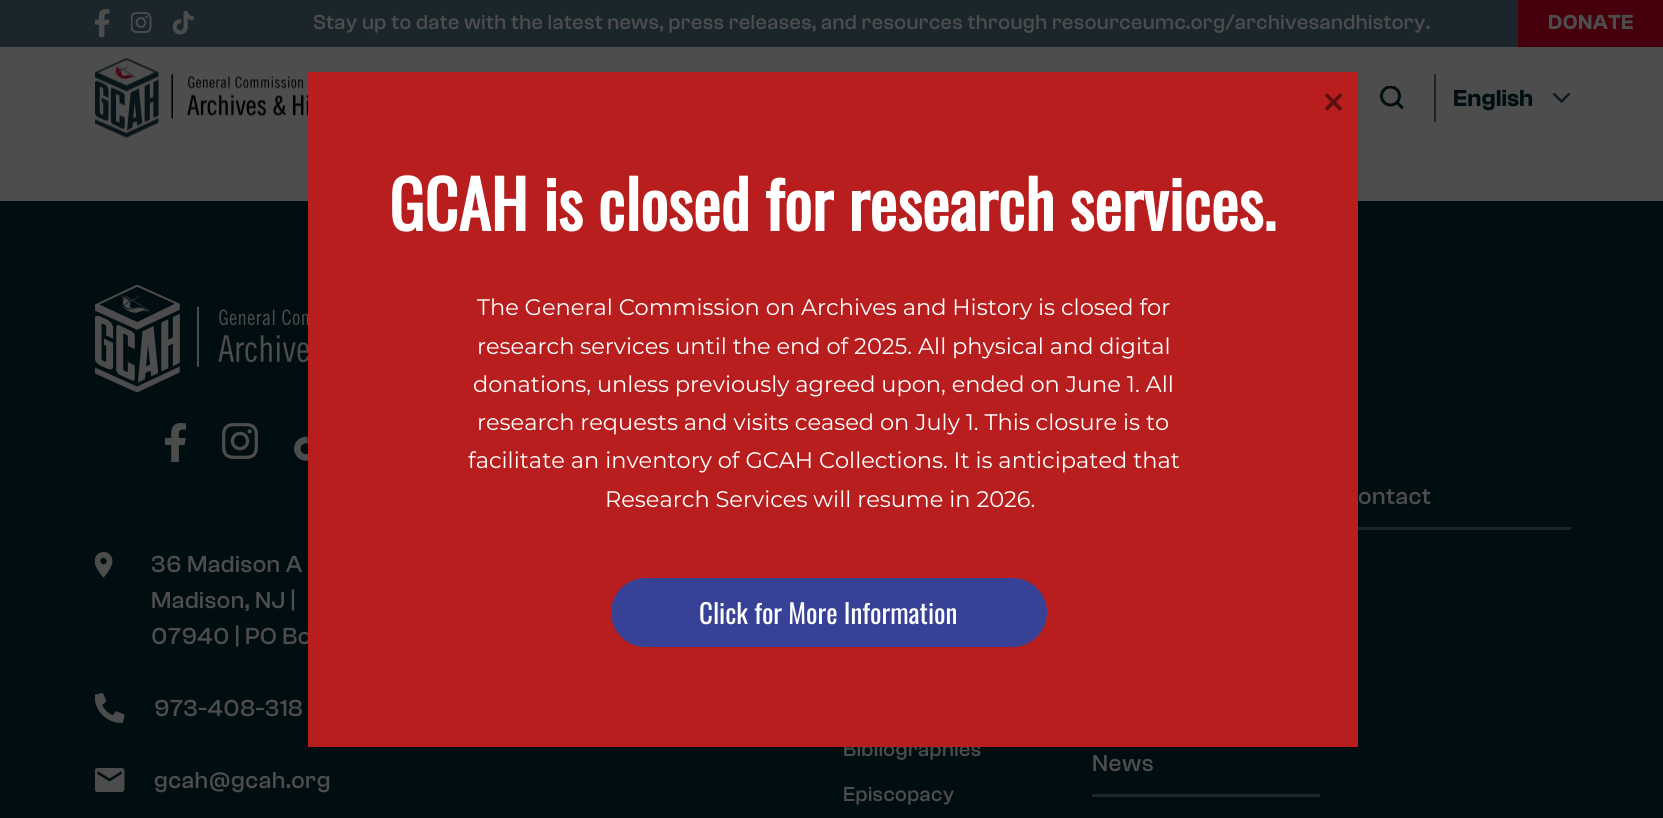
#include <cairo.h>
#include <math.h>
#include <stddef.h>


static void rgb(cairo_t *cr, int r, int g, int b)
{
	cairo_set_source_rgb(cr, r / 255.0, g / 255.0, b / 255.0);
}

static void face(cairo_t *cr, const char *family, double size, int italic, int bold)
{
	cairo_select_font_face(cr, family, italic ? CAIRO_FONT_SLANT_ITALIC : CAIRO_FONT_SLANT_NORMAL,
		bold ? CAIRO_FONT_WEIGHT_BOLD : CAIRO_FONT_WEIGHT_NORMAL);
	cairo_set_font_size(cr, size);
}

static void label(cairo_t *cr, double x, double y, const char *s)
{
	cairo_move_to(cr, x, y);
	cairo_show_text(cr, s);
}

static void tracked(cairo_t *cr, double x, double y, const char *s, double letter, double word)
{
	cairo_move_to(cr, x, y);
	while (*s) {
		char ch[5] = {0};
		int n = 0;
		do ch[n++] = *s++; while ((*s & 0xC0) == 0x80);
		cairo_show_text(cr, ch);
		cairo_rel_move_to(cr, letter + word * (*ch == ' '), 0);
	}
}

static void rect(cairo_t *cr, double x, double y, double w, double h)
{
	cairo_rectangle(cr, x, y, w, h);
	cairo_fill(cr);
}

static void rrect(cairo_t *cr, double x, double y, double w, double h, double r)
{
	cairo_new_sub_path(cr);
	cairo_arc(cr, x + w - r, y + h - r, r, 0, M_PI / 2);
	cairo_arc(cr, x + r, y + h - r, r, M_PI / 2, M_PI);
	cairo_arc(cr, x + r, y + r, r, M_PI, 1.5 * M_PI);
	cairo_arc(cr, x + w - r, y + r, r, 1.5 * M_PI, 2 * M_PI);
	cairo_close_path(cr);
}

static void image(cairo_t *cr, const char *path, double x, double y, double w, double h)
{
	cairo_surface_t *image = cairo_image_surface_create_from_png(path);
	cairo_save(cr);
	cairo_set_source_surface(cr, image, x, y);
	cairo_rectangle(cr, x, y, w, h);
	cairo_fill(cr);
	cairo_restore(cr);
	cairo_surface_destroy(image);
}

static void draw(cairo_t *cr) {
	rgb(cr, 77, 77, 77);
	cairo_paint(cr);
	rgb(cr, 27, 38, 44);
	rect(cr, 0, 0, 1518, 47);
	image(cr, "image0.png", 95, 9, 15, 28);
	image(cr, "image1.png", 131, 12, 21, 21);
	image(cr, "image2.png", 173, 11, 21, 24);
	face(cr, "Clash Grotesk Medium", 21, 0, 0);
	rgb(cr, 77, 77, 77);
	tracked(cr, 313, 29, "Stay up to date with the latest news, press releases, and resources through resourceumc.org/archivesandhistory.", 0.42, 0);
	rgb(cr, 70, 0, 12);
	rect(cr, 1518, 0, 145, 47);
	face(cr, "Clash Grotesk SemiBold", 21, 0, 0);
	rgb(cr, 77, 77, 77);
	tracked(cr, 1548, 29, "DONATE", 0.42, 0);
	image(cr, "image3.png", 95, 58, 213, 80);
	rgb(cr, 27, 38, 44);
	rect(cr, 1434, 74, 2, 48);
	image(cr, "image4.png", 1380, 86, 24, 24);
	image(cr, "image5.png", 1553, 93, 17, 10);
	cairo_save(cr);
	cairo_rectangle(cr, 1454, 80, 117, 36);
	cairo_clip(cr);
	face(cr, "Clash Grotesk SemiBold", 24, 0, 0);
	rgb(cr, 0, 13, 17);
	label(cr, 1453, 106, "English");
	cairo_restore(cr);
	rgb(cr, 0, 13, 17);
	rect(cr, 0, 201, 1663, 617);
	image(cr, "image6.png", 95, 285, 213, 108);
	image(cr, "image7.png", 165, 423, 21, 39);
	image(cr, "image8.png", 222, 423, 36, 36);
	image(cr, "image9.png", 294, 436, 14, 25);
	image(cr, "image10.png", 95, 552, 18, 26);
	face(cr, "Clash Grotesk Medium", 24, 0, 0);
	rgb(cr, 77, 77, 77);
	tracked(cr, 151, 572, "36 Madison A", 0.5, 0);
	tracked(cr, 151, 608, "Madison, NJ |", 0.5, 0);
	tracked(cr, 151, 644, "07940 | PO Bo", 0.5, 0);
	image(cr, "image11.png", 95, 693, 30, 30);
	tracked(cr, 154, 716, "973-408-318", 0.5, 0);
	image(cr, "image12.png", 95, 768, 30, 24);
	tracked(cr, 154, 788, "gcah@gcah.org", 0.5, 0);
	rgb(cr, 27, 38, 44);
	rect(cr, 1358, 527, 213, 3);
	rgb(cr, 77, 77, 77);
	tracked(cr, 1358, 504, "ontact", 0.5, 0);
	face(cr, "Clash Grotesk Medium", 21, 0, 0);
	tracked(cr, 843, 756, "Bibliographies", 0.42, 0);
	tracked(cr, 843, 801, "Episcopacy", 0.42, 0);
	rgb(cr, 27, 38, 44);
	rect(cr, 1092, 794, 228, 3);
	face(cr, "Clash Grotesk Medium", 24, 0, 0);
	rgb(cr, 77, 77, 77);
	tracked(cr, 1092, 771, "News", 0.5, 0);
	rgb(cr, 184, 30, 30);
	rect(cr, 308, 72, 1050, 675);
	image(cr, "image13.png", 1324, 93, 19, 18);
	face(cr, "Oswald", 66, 0, 1);
	rgb(cr, 255, 255, 255);
	label(cr, 389, 231, "GCAH is closed for research services.");
	face(cr, "Montserrat Thin", 22.5, 0, 0);
	label(cr, 477, 315, "The General Commission on Archives and History is closed for");
	label(cr, 477, 354, "research services until the end of 2025. All physical and digital");
	label(cr, 473, 392, "donations, unless previously agreed upon, ended on June 1. All");
	label(cr, 477, 430, "research requests and visits ceased on July 1. This closure is to");
	label(cr, 468, 468, "facilitate an inventory of GCAH Collections. It is anticipated that");
	label(cr, 605, 507, "Research Services will resume in 2026.");
	rgb(cr, 55, 66, 151);
	rrect(cr, 611, 578, 436, 69, 34.5);
	cairo_fill(cr);
	face(cr, "Oswald", 27, 0, 0);
	rgb(cr, 255, 255, 255);
	label(cr, 699, 624, "Click for More Information");
}

int main(void) {
	cairo_surface_t *surface = cairo_image_surface_create(CAIRO_FORMAT_RGB24, 1663, 818);
	cairo_t *cr = cairo_create(surface);
	cairo_font_options_t *options = cairo_font_options_create();
	cairo_font_options_set_hint_metrics(options, CAIRO_HINT_METRICS_OFF);
	cairo_font_options_set_hint_style(options, CAIRO_HINT_STYLE_NONE);
	cairo_set_font_options(cr, options);
	cairo_set_miter_limit(cr, 4);
	draw(cr);
	cairo_surface_write_to_png(surface, "render.png");
	cairo_font_options_destroy(options);
	cairo_destroy(cr);
	cairo_surface_destroy(surface);
	return 0;
}
